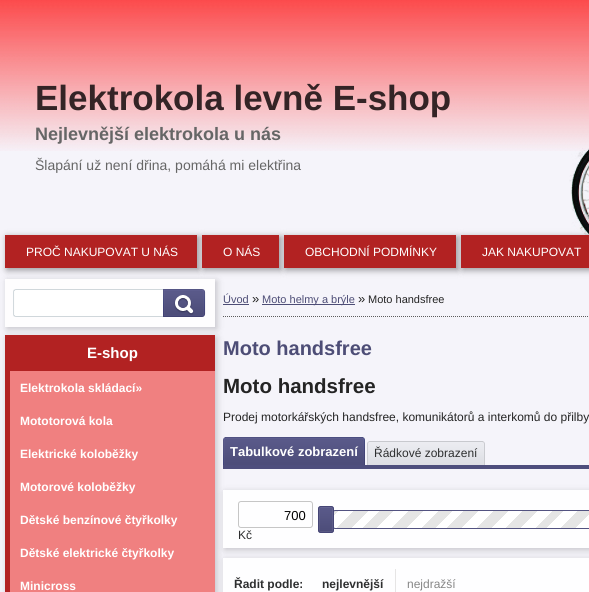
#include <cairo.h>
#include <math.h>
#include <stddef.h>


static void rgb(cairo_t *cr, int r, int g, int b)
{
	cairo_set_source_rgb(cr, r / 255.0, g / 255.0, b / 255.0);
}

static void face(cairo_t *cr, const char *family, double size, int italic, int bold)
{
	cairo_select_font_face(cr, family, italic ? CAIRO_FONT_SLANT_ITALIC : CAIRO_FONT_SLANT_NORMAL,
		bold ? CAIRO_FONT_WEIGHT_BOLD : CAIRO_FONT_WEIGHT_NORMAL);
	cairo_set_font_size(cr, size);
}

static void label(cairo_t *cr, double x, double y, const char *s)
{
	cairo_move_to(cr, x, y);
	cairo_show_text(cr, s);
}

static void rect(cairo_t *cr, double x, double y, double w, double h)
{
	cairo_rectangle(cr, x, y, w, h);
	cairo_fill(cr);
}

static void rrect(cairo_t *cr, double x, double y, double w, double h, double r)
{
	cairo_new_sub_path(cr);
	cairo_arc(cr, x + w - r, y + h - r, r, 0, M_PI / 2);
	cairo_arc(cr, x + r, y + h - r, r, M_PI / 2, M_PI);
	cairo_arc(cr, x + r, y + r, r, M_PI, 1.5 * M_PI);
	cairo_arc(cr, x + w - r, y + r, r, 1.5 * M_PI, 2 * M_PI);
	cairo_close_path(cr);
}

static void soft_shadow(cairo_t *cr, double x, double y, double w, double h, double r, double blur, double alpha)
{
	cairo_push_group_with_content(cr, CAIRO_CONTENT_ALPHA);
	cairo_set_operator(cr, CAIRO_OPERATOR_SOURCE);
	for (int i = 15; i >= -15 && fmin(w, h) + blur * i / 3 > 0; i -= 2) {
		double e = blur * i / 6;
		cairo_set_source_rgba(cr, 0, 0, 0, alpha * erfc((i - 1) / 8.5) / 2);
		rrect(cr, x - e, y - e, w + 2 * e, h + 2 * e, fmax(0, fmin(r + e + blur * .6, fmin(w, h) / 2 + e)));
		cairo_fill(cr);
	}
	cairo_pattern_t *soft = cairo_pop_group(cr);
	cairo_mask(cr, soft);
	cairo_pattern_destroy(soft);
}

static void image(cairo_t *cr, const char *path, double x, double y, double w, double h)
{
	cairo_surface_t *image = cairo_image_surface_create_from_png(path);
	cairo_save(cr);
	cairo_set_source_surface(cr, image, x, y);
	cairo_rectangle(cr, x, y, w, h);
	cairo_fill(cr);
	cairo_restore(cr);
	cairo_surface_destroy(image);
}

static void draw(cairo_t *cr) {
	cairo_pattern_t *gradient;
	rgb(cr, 245, 244, 250);
	cairo_paint(cr);
	image(cr, "image0.png", 0, 0, 589, 151);
	image(cr, "image1.png", 569, 148, 20, 87);
	face(cr, "Liberation Sans", 35, 0, 1);
	rgb(cr, 52, 36, 38);
	label(cr, 35, 110, "Elektrokola levně E-shop");
	face(cr, "Liberation Sans", 18, 0, 1);
	rgb(cr, 102, 102, 102);
	label(cr, 35, 140, "Nejlevnější elektrokola u nás");
	face(cr, "Liberation Sans", 14, 0, 0);
	label(cr, 35, 170, "Šlapání už není dřina, pomáhá mi elektřina");
	rgb(cr, 0, 0, 0);
	soft_shadow(cr, 7, 281, 210, 48, 0, 3.5, 0.2);
	rgb(cr, 254, 253, 254);
	rect(cr, 5, 279, 210, 48);
	rgb(cr, 0, 0, 0);
	soft_shadow(cr, 7, 237, 192, 33, 0, 3.5, 0.4);
	rgb(cr, 178, 34, 34);
	rect(cr, 5, 235, 192, 33);
	face(cr, "Liberation Sans", 12, 0, 0);
	rgb(cr, 255, 255, 255);
	label(cr, 26, 256, "PROČ NAKUPOVAT U NÁS");
	rgb(cr, 0, 0, 0);
	soft_shadow(cr, 204, 237, 77, 33, 0, 3.5, 0.4);
	rgb(cr, 178, 34, 34);
	rect(cr, 202, 235, 77, 33);
	rgb(cr, 255, 255, 255);
	label(cr, 223, 256, "O NÁS");
	rgb(cr, 0, 0, 0);
	soft_shadow(cr, 286, 237, 172, 33, 0, 3.5, 0.4);
	rgb(cr, 178, 34, 34);
	rect(cr, 284, 235, 172, 33);
	rgb(cr, 255, 255, 255);
	label(cr, 305, 256, "OBCHODNÍ PODMÍNKY");
	rgb(cr, 0, 0, 0);
	soft_shadow(cr, 463, 237, 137, 33, 0, 3.5, 0.4);
	rgb(cr, 178, 34, 34);
	rect(cr, 461, 235, 128, 33);
	rgb(cr, 255, 255, 255);
	label(cr, 482, 256, "JAK NAKUPOVAT");
	image(cr, "image2.png", 13, 289, 150, 28);
	image(cr, "image3.png", 163, 289, 43, 28);
	rgb(cr, 0, 0, 0);
	soft_shadow(cr, 7, 337, 210, 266, 0, 3.5, 0.2);
	rgb(cr, 178, 34, 34);
	rect(cr, 5, 335, 210, 36);
	face(cr, "Liberation Sans", 15, 0, 1);
	rgb(cr, 255, 255, 255);
	label(cr, 87, 358, "E-shop");
	rgb(cr, 0, 0, 0);
	soft_shadow(cr, 225, 492, 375, 58, 0, 3.5, 0.2);
	soft_shadow(cr, 225, 560, 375, 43, 0, 3.5, 0.2);
	rgb(cr, 240, 128, 128);
	rect(cr, 10, 371, 205, 221);
	rgb(cr, 178, 34, 34);
	rect(cr, 5, 371, 5, 221);
	face(cr, "Liberation Sans", 12, 0, 1);
	rgb(cr, 255, 255, 255);
	label(cr, 20, 392, "Elektrokola skládací»");
	label(cr, 20, 425, "Mototorová kola");
	label(cr, 20, 458, "Elektrické koloběžky");
	label(cr, 20, 491, "Motorové koloběžky");
	label(cr, 20, 524, "Dětské benzínové čtyřkolky");
	label(cr, 20, 557, "Dětské elektrické čtyřkolky");
	label(cr, 20, 590, "Minicross");
	cairo_new_path(cr);
	cairo_move_to(cr, 223, 316.5);
	cairo_line_to(cr, 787, 316.5);
	rgb(cr, 92, 92, 92);
	cairo_set_line_width(cr, 1);
	cairo_set_dash(cr, (double[]){1, 1}, 2, 0);
	cairo_stroke(cr);
	face(cr, "Liberation Sans", 11, 0, 0);
	rgb(cr, 77, 77, 118);
	label(cr, 223, 303, "Úvod");
	rect(cr, 223, 304, 26, 1);
	face(cr, "Liberation Sans", 13, 0, 0);
	rgb(cr, 36, 36, 36);
	label(cr, 252, 303, "»");
	rgb(cr, 77, 77, 118);
	rect(cr, 262, 304, 93, 1);
	face(cr, "Liberation Sans", 11, 0, 0);
	label(cr, 262, 303, "Moto helmy a brýle");
	face(cr, "Liberation Sans", 13, 0, 0);
	rgb(cr, 36, 36, 36);
	label(cr, 358, 303, "»");
	face(cr, "Liberation Sans", 11, 0, 0);
	label(cr, 368, 303, "Moto handsfree");
	face(cr, "Liberation Sans", 20, 0, 1);
	rgb(cr, 77, 77, 118);
	label(cr, 223, 355, "Moto handsfree");
	face(cr, "Liberation Sans", 20.5, 0, 1);
	rgb(cr, 36, 36, 36);
	label(cr, 223, 393, "Moto handsfree");
	face(cr, "Liberation Sans", 12, 0, 0);
	label(cr, 223, 421, "Prodej motorkářských handsfree, komunikátorů a interkomů do přilby");
	image(cr, "image4.png", 223, 437, 140, 28);
	image(cr, "image5.png", 225, 437, 140, 28);
	face(cr, "Liberation Sans", 13, 0, 1);
	rgb(cr, 255, 255, 255);
	label(cr, 230, 456, "Tabulkové zobrazení");
	image(cr, "image6.png", 367, 441, 116, 24);
	image(cr, "image7.png", 369, 441, 116, 24);
	face(cr, "Liberation Sans", 12, 0, 0);
	rgb(cr, 46, 47, 48);
	label(cr, 374, 457, "Řádkové zobrazení");
	rgb(cr, 78, 78, 125);
	rect(cr, 223, 465, 366, 4);
	rgb(cr, 254, 254, 255);
	rect(cr, 223, 490, 366, 58);
	rrect(cr, 238.5, 501.5, 74, 26, 2.5);
	rgb(cr, 198, 198, 198);
	cairo_set_dash(cr, NULL, 0, 0);
	cairo_stroke(cr);
	face(cr, "Liberation Sans", 13, 0, 0);
	rgb(cr, 0, 0, 0);
	label(cr, 284, 520, "700");
	face(cr, "Liberation Sans", 12, 0, 0);
	rgb(cr, 46, 47, 48);
	label(cr, 238, 539, "Kč");
	rrect(cr, 333.5, 510.5, 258, 18, 1.5);
	rgb(cr, 230, 229, 229);
	cairo_stroke(cr);
	gradient = cairo_pattern_create_linear(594, 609, 410, 425);
	cairo_pattern_add_color_stop_rgba(gradient, 0, 1, 1, 1, 1);
	cairo_pattern_add_color_stop_rgba(gradient, 0.04, 1, 1, 1, 1);
	cairo_pattern_add_color_stop_rgba(gradient, 0.04, 0.898, 0.898, 0.898, 1);
	cairo_pattern_add_color_stop_rgba(gradient, 0.08, 0.898, 0.898, 0.898, 1);
	cairo_pattern_add_color_stop_rgba(gradient, 0.08, 1, 1, 1, 1);
	cairo_pattern_add_color_stop_rgba(gradient, 0.12, 1, 1, 1, 1);
	cairo_pattern_add_color_stop_rgba(gradient, 0.12, 0.898, 0.898, 0.898, 1);
	cairo_pattern_add_color_stop_rgba(gradient, 0.15, 0.898, 0.898, 0.898, 1);
	cairo_pattern_add_color_stop_rgba(gradient, 0.15, 1, 1, 1, 1);
	cairo_pattern_add_color_stop_rgba(gradient, 0.19, 1, 1, 1, 1);
	cairo_pattern_add_color_stop_rgba(gradient, 0.19, 0.898, 0.898, 0.898, 1);
	cairo_pattern_add_color_stop_rgba(gradient, 0.23, 0.898, 0.898, 0.898, 1);
	cairo_pattern_add_color_stop_rgba(gradient, 0.23, 1, 1, 1, 1);
	cairo_pattern_add_color_stop_rgba(gradient, 0.27, 1, 1, 1, 1);
	cairo_pattern_add_color_stop_rgba(gradient, 0.27, 0.898, 0.898, 0.898, 1);
	cairo_pattern_add_color_stop_rgba(gradient, 0.31, 0.898, 0.898, 0.898, 1);
	cairo_pattern_add_color_stop_rgba(gradient, 0.31, 1, 1, 1, 1);
	cairo_pattern_add_color_stop_rgba(gradient, 0.35, 1, 1, 1, 1);
	cairo_pattern_add_color_stop_rgba(gradient, 0.35, 0.898, 0.898, 0.898, 1);
	cairo_pattern_add_color_stop_rgba(gradient, 0.38, 0.898, 0.898, 0.898, 1);
	cairo_pattern_add_color_stop_rgba(gradient, 0.38, 1, 1, 1, 1);
	cairo_pattern_add_color_stop_rgba(gradient, 0.42, 1, 1, 1, 1);
	cairo_pattern_add_color_stop_rgba(gradient, 0.42, 0.898, 0.898, 0.898, 1);
	cairo_pattern_add_color_stop_rgba(gradient, 0.46, 0.898, 0.898, 0.898, 1);
	cairo_pattern_add_color_stop_rgba(gradient, 0.46, 1, 1, 1, 1);
	cairo_pattern_add_color_stop_rgba(gradient, 0.5, 1, 1, 1, 1);
	cairo_pattern_add_color_stop_rgba(gradient, 0.5, 0.898, 0.898, 0.898, 1);
	cairo_pattern_add_color_stop_rgba(gradient, 0.54, 0.898, 0.898, 0.898, 1);
	cairo_pattern_add_color_stop_rgba(gradient, 0.54, 1, 1, 1, 1);
	cairo_pattern_add_color_stop_rgba(gradient, 0.58, 1, 1, 1, 1);
	cairo_pattern_add_color_stop_rgba(gradient, 0.58, 0.898, 0.898, 0.898, 1);
	cairo_pattern_add_color_stop_rgba(gradient, 0.62, 0.898, 0.898, 0.898, 1);
	cairo_pattern_add_color_stop_rgba(gradient, 0.62, 1, 1, 1, 1);
	cairo_pattern_add_color_stop_rgba(gradient, 0.65, 1, 1, 1, 1);
	cairo_pattern_add_color_stop_rgba(gradient, 0.65, 0.898, 0.898, 0.898, 1);
	cairo_pattern_add_color_stop_rgba(gradient, 0.69, 0.898, 0.898, 0.898, 1);
	cairo_pattern_add_color_stop_rgba(gradient, 0.69, 1, 1, 1, 1);
	cairo_pattern_add_color_stop_rgba(gradient, 0.73, 1, 1, 1, 1);
	cairo_pattern_add_color_stop_rgba(gradient, 0.73, 0.898, 0.898, 0.898, 1);
	cairo_pattern_add_color_stop_rgba(gradient, 0.77, 0.898, 0.898, 0.898, 1);
	cairo_pattern_add_color_stop_rgba(gradient, 0.77, 1, 1, 1, 1);
	cairo_pattern_add_color_stop_rgba(gradient, 0.81, 1, 1, 1, 1);
	cairo_pattern_add_color_stop_rgba(gradient, 0.81, 0.898, 0.898, 0.898, 1);
	cairo_pattern_add_color_stop_rgba(gradient, 0.85, 0.898, 0.898, 0.898, 1);
	cairo_pattern_add_color_stop_rgba(gradient, 0.85, 1, 1, 1, 1);
	cairo_pattern_add_color_stop_rgba(gradient, 0.88, 1, 1, 1, 1);
	cairo_pattern_add_color_stop_rgba(gradient, 0.88, 0.898, 0.898, 0.898, 1);
	cairo_pattern_add_color_stop_rgba(gradient, 0.92, 0.898, 0.898, 0.898, 1);
	cairo_pattern_add_color_stop_rgba(gradient, 0.92, 1, 1, 1, 1);
	cairo_pattern_add_color_stop_rgba(gradient, 0.96, 1, 1, 1, 1);
	cairo_pattern_add_color_stop_rgba(gradient, 0.96, 0.898, 0.898, 0.898, 1);
	cairo_pattern_add_color_stop_rgba(gradient, 1, 0.898, 0.898, 0.898, 1);
	cairo_set_source(cr, gradient);
	cairo_pattern_destroy(gradient);
	rect(cr, 334, 511, 255, 17);
	rrect(cr, 333.5, 510.5, 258, 18, 1.5);
	rgb(cr, 83, 83, 129);
	cairo_stroke(cr);
	image(cr, "image8.png", 318, 506, 16, 27);
	cairo_rectangle(cr, 319.5, 507.5, 13, 24);
	cairo_set_source_rgba(cr, 1, 1, 1, 0.07);
	cairo_stroke(cr);
	rrect(cr, 318.5, 506.5, 15, 26, 2.5);
	rgb(cr, 70, 70, 118);
	cairo_stroke(cr);
	rgb(cr, 254, 254, 255);
	rect(cr, 223, 558, 366, 34);
	face(cr, "Liberation Sans", 12, 0, 1);
	rgb(cr, 46, 47, 48);
	label(cr, 234, 588, "Řadit podle:");
	rgb(cr, 230, 229, 229);
	rect(cr, 395, 569, 1, 23);
	rgb(cr, 46, 47, 48);
	label(cr, 322, 588, "nejlevnější");
	face(cr, "Liberation Sans", 12, 0, 0);
	rgb(cr, 135, 135, 135);
	label(cr, 407, 588, "nejdražší");
}

int main(void) {
	cairo_surface_t *surface = cairo_image_surface_create(CAIRO_FORMAT_RGB24, 589, 592);
	cairo_t *cr = cairo_create(surface);
	cairo_font_options_t *options = cairo_font_options_create();
	cairo_font_options_set_hint_metrics(options, CAIRO_HINT_METRICS_OFF);
	cairo_font_options_set_hint_style(options, CAIRO_HINT_STYLE_NONE);
	cairo_set_font_options(cr, options);
	cairo_set_miter_limit(cr, 4);
	draw(cr);
	cairo_surface_write_to_png(surface, "render.png");
	cairo_font_options_destroy(options);
	cairo_destroy(cr);
	cairo_surface_destroy(surface);
	return 0;
}
